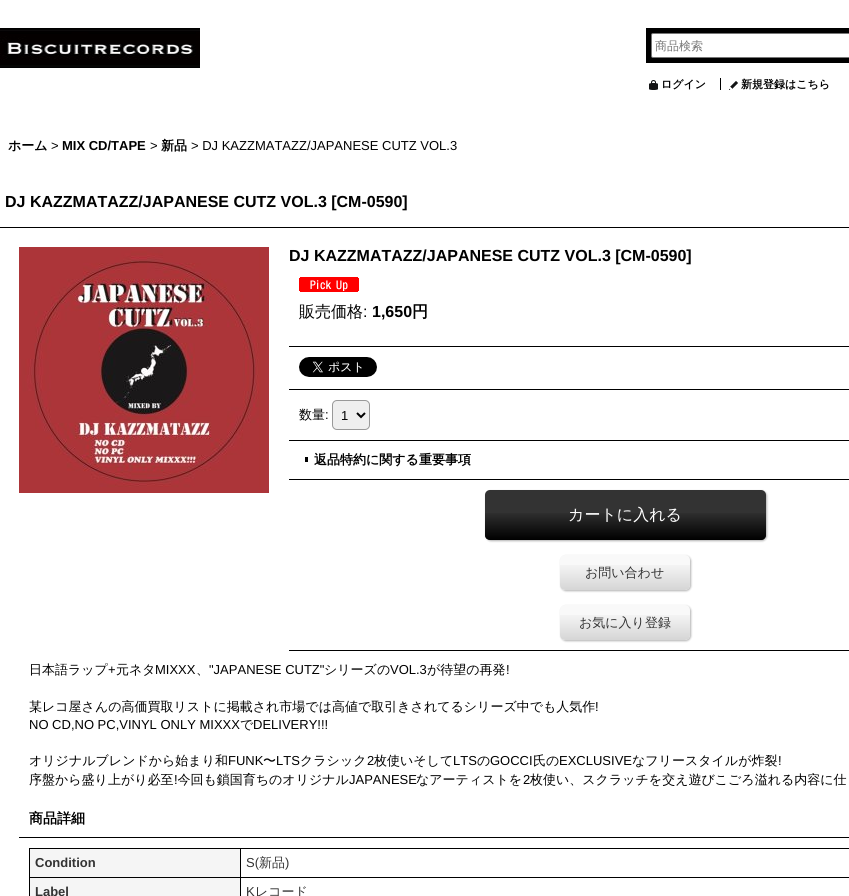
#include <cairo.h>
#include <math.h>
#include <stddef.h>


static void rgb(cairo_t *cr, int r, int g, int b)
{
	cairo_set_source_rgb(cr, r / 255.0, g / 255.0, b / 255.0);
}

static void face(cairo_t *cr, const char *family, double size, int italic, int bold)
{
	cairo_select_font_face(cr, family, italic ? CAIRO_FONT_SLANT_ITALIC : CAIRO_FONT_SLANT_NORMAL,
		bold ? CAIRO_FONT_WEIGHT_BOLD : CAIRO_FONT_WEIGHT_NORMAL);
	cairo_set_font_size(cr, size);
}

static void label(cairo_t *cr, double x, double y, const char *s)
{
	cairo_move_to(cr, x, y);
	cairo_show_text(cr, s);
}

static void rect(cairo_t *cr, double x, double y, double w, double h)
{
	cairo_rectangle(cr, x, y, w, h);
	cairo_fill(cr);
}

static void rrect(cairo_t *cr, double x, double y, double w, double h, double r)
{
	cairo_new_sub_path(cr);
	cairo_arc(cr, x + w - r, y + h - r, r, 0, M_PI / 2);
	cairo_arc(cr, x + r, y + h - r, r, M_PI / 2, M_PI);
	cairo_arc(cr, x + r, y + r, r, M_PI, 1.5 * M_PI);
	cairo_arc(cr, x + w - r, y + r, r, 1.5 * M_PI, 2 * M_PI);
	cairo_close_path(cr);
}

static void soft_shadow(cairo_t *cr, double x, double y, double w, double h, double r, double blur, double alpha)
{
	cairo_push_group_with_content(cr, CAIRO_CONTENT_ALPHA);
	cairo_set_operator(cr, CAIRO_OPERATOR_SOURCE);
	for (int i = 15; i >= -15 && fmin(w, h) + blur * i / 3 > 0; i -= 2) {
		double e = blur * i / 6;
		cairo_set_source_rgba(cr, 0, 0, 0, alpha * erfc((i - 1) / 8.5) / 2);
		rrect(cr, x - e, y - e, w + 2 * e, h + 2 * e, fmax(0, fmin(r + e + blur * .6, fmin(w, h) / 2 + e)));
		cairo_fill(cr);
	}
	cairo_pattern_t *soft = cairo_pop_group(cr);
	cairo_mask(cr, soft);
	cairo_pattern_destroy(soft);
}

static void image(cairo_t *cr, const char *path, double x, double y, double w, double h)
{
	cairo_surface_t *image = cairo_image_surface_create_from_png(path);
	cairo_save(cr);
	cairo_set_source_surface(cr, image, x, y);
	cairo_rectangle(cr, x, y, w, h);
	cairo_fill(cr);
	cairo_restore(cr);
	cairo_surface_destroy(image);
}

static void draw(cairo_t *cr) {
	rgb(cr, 255, 255, 255);
	cairo_paint(cr);
	image(cr, "image0.png", 0, 28, 200, 40);
	rgb(cr, 0, 0, 0);
	rect(cr, 646, 28, 203, 35);
	rgb(cr, 255, 255, 255);
	rrect(cr, 651.5, 33.5, 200, 24, 1.5);
	cairo_fill_preserve(cr);
	rgb(cr, 118, 118, 118);
	cairo_set_line_width(cr, 1);
	cairo_stroke(cr);
	face(cr, "WenQuanYi Zen Hei Medium", 12, 0, 0);
	rgb(cr, 117, 117, 117);
	label(cr, 655, 50, "商品検索");
	image(cr, "image1.png", 649, 80, 9, 10);
	face(cr, "WenQuanYi Zen Hei", 11, 0, 1);
	rgb(cr, 0, 0, 0);
	label(cr, 661, 88, "ログイン");
	rect(cr, 720, 78, 1, 12);
	image(cr, "image2.png", 729, 81, 9, 9);
	label(cr, 741, 88, "新規登録はこちら");
	face(cr, "WenQuanYi Zen Hei", 13, 0, 1);
	label(cr, 8, 150, "ホーム");
	face(cr, "Liberation Sans", 13, 0, 0);
	label(cr, 51, 150, ">");
	face(cr, "Liberation Sans", 13, 0, 1);
	label(cr, 62, 150, "MIX CD/TAPE");
	face(cr, "Liberation Sans", 13, 0, 0);
	label(cr, 150, 150, ">");
	face(cr, "WenQuanYi Zen Hei", 13, 0, 1);
	label(cr, 161, 150, "新品");
	face(cr, "Liberation Sans", 13, 0, 0);
	label(cr, 191, 150, "> DJ KAZZMATAZZ/JAPANESE CUTZ VOL.3");
	rect(cr, 0, 227, 849, 1);
	face(cr, "Liberation Sans", 16, 0, 1);
	label(cr, 5, 207, "DJ KAZZMATAZZ/JAPANESE CUTZ VOL.3 [CM-0590]");
	image(cr, "image3.png", 19, 247, 250, 246);
	label(cr, 289, 261, "DJ KAZZMATAZZ/JAPANESE CUTZ VOL.3 [CM-0590]");
	image(cr, "image4.png", 299, 277, 60, 15);
	rect(cr, 289, 346, 560, 1);
	face(cr, "WenQuanYi Zen Hei Medium", 16, 0, 0);
	label(cr, 299, 317, "販売価格");
	face(cr, "Liberation Sans", 16, 0, 0);
	label(cr, 363, 317, ":");
	face(cr, "Liberation Sans", 16, 0, 1);
	label(cr, 372, 317, "1,650");
	face(cr, "WenQuanYi Zen Hei", 16, 0, 1);
	label(cr, 412, 317, "円");
	rect(cr, 289, 389, 560, 1);
	image(cr, "image5.png", 299, 357, 78, 20);
	rect(cr, 289, 440, 560, 1);
	face(cr, "WenQuanYi Zen Hei Medium", 13, 0, 0);
	label(cr, 299, 419, "数量");
	face(cr, "Liberation Sans", 13, 0, 0);
	label(cr, 325, 419, ":");
	rgb(cr, 239, 239, 239);
	rrect(cr, 332.5, 400.5, 37, 29, 4.5);
	cairo_fill_preserve(cr);
	rgb(cr, 153, 153, 153);
	cairo_stroke(cr);
	cairo_new_path(cr);
	cairo_move_to(cr, 357, 413);
	cairo_line_to(cr, 361, 417);
	cairo_line_to(cr, 365, 413);
	rgb(cr, 0, 0, 0);
	cairo_set_line_width(cr, 2);
	cairo_stroke(cr);
	label(cr, 341, 420, "1");
	rect(cr, 289, 479, 560, 1);
	face(cr, "WenQuanYi Zen Hei", 13, 0, 1);
	label(cr, 314, 464, "返品特約に関する重要事項");
	rect(cr, 305, 457, 3, 5);
	rect(cr, 289, 650, 560, 1);
	rgb(cr, 0, 0, 0);
	soft_shadow(cr, 486, 491, 281, 50, 5, 1, 0.3);
	rgb(cr, 51, 51, 51);
	rrect(cr, 485, 490, 281, 50, 5);
	cairo_fill(cr);
	image(cr, "image6.png", 485, 513, 281, 27);
	face(cr, "WenQuanYi Zen Hei Medium", 16, 0, 0);
	rgb(cr, 255, 255, 255);
	label(cr, 568, 520, "カートに入れる");
	rgb(cr, 0, 0, 0);
	soft_shadow(cr, 561, 556, 130, 35, 5, 1, 0.3);
	rgb(cr, 249, 249, 249);
	rrect(cr, 560, 555, 130, 35, 5);
	cairo_fill(cr);
	image(cr, "image7.png", 560, 565, 130, 25);
	face(cr, "WenQuanYi Zen Hei Medium", 13, 0, 0);
	rgb(cr, 51, 51, 51);
	label(cr, 585, 577, "お問い合わせ");
	rgb(cr, 0, 0, 0);
	soft_shadow(cr, 561, 606, 130, 35, 5, 1, 0.3);
	rgb(cr, 249, 249, 249);
	rrect(cr, 560, 605, 130, 35, 5);
	cairo_fill(cr);
	image(cr, "image7.png", 560, 615, 130, 25);
	rgb(cr, 51, 51, 51);
	label(cr, 579, 627, "お気に入り登録");
	rgb(cr, 0, 0, 0);
	label(cr, 29, 674, "日本語ラップ");
	face(cr, "Liberation Sans", 13, 0, 0);
	label(cr, 108, 674, "+");
	face(cr, "WenQuanYi Zen Hei Medium", 13, 0, 0);
	label(cr, 116, 674, "元ネタ");
	face(cr, "Liberation Sans", 13, 0, 0);
	label(cr, 155, 674, "MIXXX");
	label(cr, 209, 674, "\"JAPANESE CUTZ\"");
	face(cr, "WenQuanYi Zen Hei Medium", 13, 0, 0);
	label(cr, 324, 674, "シリーズの");
	face(cr, "Liberation Sans", 13, 0, 0);
	label(cr, 390, 674, "VOL.3");
	face(cr, "WenQuanYi Zen Hei Medium", 13, 0, 0);
	label(cr, 427, 674, "が待望の再発");
	face(cr, "Liberation Sans", 13, 0, 0);
	label(cr, 506, 674, "!");
	face(cr, "WenQuanYi Zen Hei Medium", 13, 0, 0);
	label(cr, 196, 674, "、");
	label(cr, 29, 711, "某レコ屋さんの高価買取リストに掲載され市場では高値で取引きされてるシリーズ中でも人気作");
	face(cr, "Liberation Sans", 13, 0, 0);
	label(cr, 595, 711, "!");
	label(cr, 29, 729, "NO CD,NO PC,VINYL ONLY MIXXX");
	face(cr, "WenQuanYi Zen Hei Medium", 13, 0, 0);
	label(cr, 240, 729, "で");
	face(cr, "Liberation Sans", 13, 0, 0);
	label(cr, 253, 729, "DELIVERY!!!");
	face(cr, "WenQuanYi Zen Hei Medium", 13, 0, 0);
	label(cr, 29, 765, "オリジナルブレンドから始まり和");
	face(cr, "Liberation Sans", 13, 0, 0);
	label(cr, 228, 765, "FUNK");
	face(cr, "WenQuanYi Zen Hei Medium", 13, 0, 0);
	label(cr, 263, 765, "〜");
	face(cr, "Liberation Sans", 13, 0, 0);
	label(cr, 276, 765, "LTS");
	face(cr, "WenQuanYi Zen Hei Medium", 13, 0, 0);
	label(cr, 300, 765, "クラシック");
	face(cr, "Liberation Sans", 13, 0, 0);
	label(cr, 367, 765, "2");
	face(cr, "WenQuanYi Zen Hei Medium", 13, 0, 0);
	label(cr, 374, 765, "枚使いそして");
	face(cr, "Liberation Sans", 13, 0, 0);
	label(cr, 453, 765, "LTS");
	face(cr, "WenQuanYi Zen Hei Medium", 13, 0, 0);
	label(cr, 477, 765, "の");
	face(cr, "Liberation Sans", 13, 0, 0);
	label(cr, 490, 765, "GOCCI");
	face(cr, "WenQuanYi Zen Hei Medium", 13, 0, 0);
	label(cr, 533, 765, "氏の");
	face(cr, "Liberation Sans", 13, 0, 0);
	label(cr, 559, 765, "EXCLUSIVE");
	face(cr, "WenQuanYi Zen Hei Medium", 13, 0, 0);
	label(cr, 632, 765, "なフリースタイルが炸裂");
	face(cr, "Liberation Sans", 13, 0, 0);
	label(cr, 778, 765, "!");
	face(cr, "WenQuanYi Zen Hei Medium", 13, 0, 0);
	label(cr, 29, 784, "序盤から盛り上がり必至 今回も鎖国育ちのオリジナル");
	face(cr, "Liberation Sans", 13, 0, 0);
	label(cr, 349, 784, "JAPANESE");
	face(cr, "WenQuanYi Zen Hei Medium", 13, 0, 0);
	label(cr, 416, 784, "なアーティストを");
	face(cr, "Liberation Sans", 13, 0, 0);
	label(cr, 523, 784, "2");
	face(cr, "WenQuanYi Zen Hei Medium", 13, 0, 0);
	label(cr, 530, 784, "枚使い、スクラッチを交え遊びこごろ溢れる内容に仕");
	face(cr, "Liberation Sans", 13, 0, 0);
	label(cr, 174, 784, "!");
	rect(cr, 19, 837, 830, 1);
	face(cr, "WenQuanYi Zen Hei", 14, 0, 1);
	label(cr, 29, 823, "商品詳細");
	rgb(cr, 245, 245, 245);
	rect(cr, 30, 849, 210, 28);
	rgb(cr, 0, 0, 0);
	rect(cr, 240, 848, 609, 1);
	rect(cr, 240, 877, 609, 1);
	rect(cr, 240, 877, 1, 19);
	rect(cr, 29, 877, 212, 1);
	rect(cr, 240, 848, 1, 30);
	rect(cr, 29, 848, 212, 1);
	rect(cr, 29, 877, 1, 19);
	rect(cr, 29, 848, 1, 30);
	face(cr, "Liberation Sans", 13, 0, 1);
	rgb(cr, 51, 51, 51);
	label(cr, 35, 867, "Condition");
	face(cr, "Liberation Sans", 13, 0, 0);
	label(cr, 246, 867, "S(");
	face(cr, "WenQuanYi Zen Hei Medium", 13, 0, 0);
	label(cr, 259, 867, "新品");
	face(cr, "Liberation Sans", 13, 0, 0);
	label(cr, 285, 867, ")");
	rgb(cr, 245, 245, 245);
	rect(cr, 30, 878, 210, 18);
	face(cr, "Liberation Sans", 13, 0, 1);
	rgb(cr, 51, 51, 51);
	label(cr, 35, 896, "Label");
	face(cr, "Liberation Sans", 13, 0, 0);
	label(cr, 246, 896, "K");
	face(cr, "WenQuanYi Zen Hei Medium", 13, 0, 0);
	label(cr, 255, 896, "レコード");
}

int main(void) {
	cairo_surface_t *surface = cairo_image_surface_create(CAIRO_FORMAT_RGB24, 849, 896);
	cairo_t *cr = cairo_create(surface);
	cairo_font_options_t *options = cairo_font_options_create();
	cairo_font_options_set_hint_metrics(options, CAIRO_HINT_METRICS_OFF);
	cairo_font_options_set_hint_style(options, CAIRO_HINT_STYLE_NONE);
	cairo_set_font_options(cr, options);
	cairo_set_miter_limit(cr, 4);
	draw(cr);
	cairo_surface_write_to_png(surface, "render.png");
	cairo_font_options_destroy(options);
	cairo_destroy(cr);
	cairo_surface_destroy(surface);
	return 0;
}
